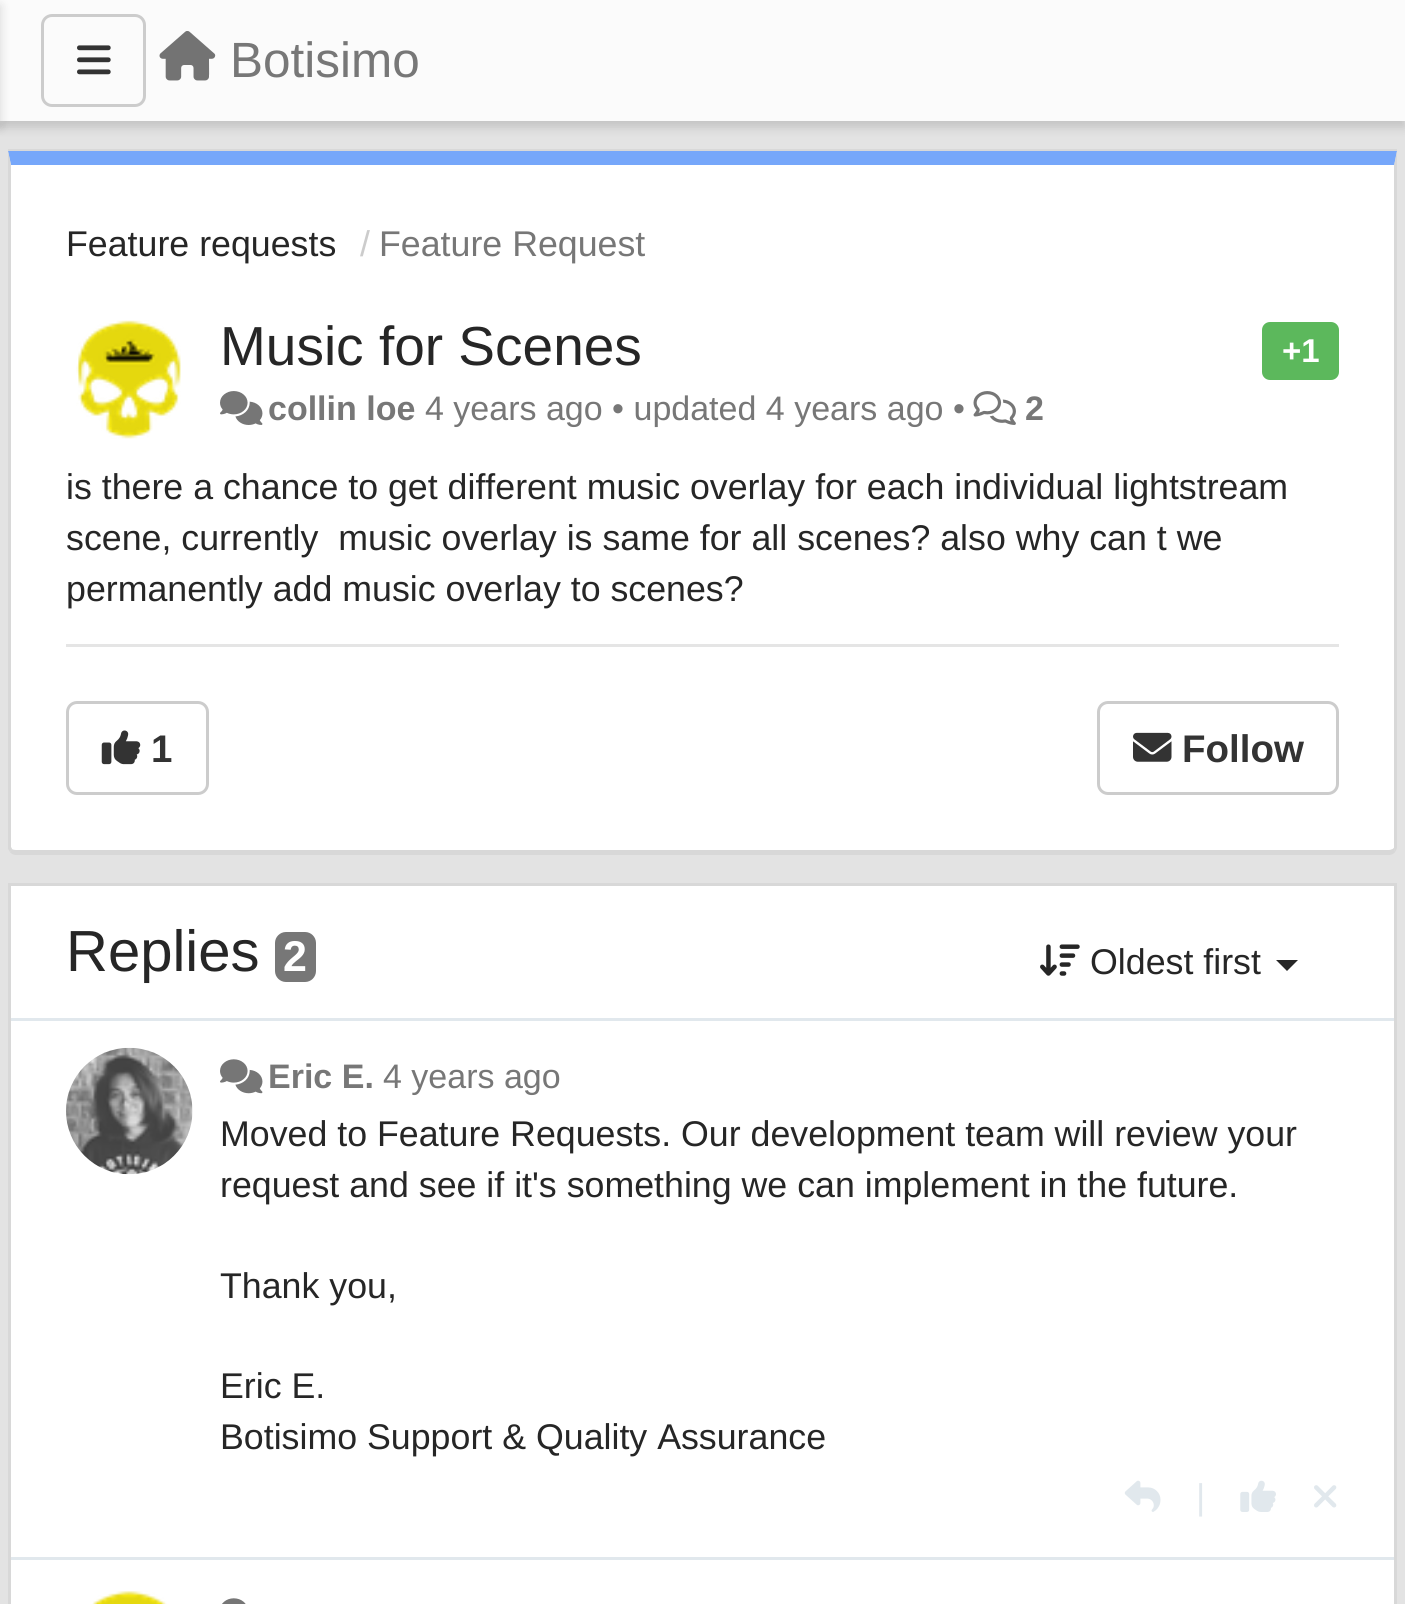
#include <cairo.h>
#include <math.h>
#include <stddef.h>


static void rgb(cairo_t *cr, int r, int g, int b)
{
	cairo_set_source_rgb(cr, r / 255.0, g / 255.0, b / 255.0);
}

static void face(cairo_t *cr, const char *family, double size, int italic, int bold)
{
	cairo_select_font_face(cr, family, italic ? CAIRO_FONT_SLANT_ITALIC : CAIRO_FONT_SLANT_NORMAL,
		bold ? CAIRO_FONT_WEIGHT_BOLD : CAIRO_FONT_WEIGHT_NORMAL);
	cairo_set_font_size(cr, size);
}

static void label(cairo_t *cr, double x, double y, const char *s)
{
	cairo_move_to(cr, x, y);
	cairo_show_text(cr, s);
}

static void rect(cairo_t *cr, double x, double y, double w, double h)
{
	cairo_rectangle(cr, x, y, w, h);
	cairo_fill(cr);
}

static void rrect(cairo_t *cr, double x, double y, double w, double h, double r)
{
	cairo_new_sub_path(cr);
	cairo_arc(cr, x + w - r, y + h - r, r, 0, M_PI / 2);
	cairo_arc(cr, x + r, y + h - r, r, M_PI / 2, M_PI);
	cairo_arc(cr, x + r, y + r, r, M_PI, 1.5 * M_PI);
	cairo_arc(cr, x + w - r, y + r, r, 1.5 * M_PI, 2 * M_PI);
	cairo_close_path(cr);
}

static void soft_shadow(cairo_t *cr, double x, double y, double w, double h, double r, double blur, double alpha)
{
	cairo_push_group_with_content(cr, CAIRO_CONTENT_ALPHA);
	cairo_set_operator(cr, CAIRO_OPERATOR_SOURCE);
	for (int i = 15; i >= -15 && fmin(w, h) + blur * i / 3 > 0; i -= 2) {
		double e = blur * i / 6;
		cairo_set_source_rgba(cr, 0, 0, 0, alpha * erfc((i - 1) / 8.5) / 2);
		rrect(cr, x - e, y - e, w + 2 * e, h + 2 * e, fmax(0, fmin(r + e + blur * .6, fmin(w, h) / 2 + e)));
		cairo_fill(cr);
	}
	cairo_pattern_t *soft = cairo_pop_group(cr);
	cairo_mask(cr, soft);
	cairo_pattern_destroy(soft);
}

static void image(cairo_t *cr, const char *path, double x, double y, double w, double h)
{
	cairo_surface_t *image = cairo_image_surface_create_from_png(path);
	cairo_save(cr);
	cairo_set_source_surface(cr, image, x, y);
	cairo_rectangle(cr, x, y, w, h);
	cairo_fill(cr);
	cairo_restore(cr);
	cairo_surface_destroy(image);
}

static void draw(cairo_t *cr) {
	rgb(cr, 227, 227, 227);
	cairo_paint(cr);
	rgb(cr, 0, 0, 0);
	soft_shadow(cr, 0, 6, 1405, 121, 0, 5.5, 0.15);
	rgb(cr, 251, 251, 251);
	rect(cr, 0, 0, 1405, 121);
	rgb(cr, 0, 0, 0);
	soft_shadow(cr, -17, 6, 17, 121, 0, 5.5, 0.15);
	rrect(cr, 42.5, 15.5, 102, 90, 9.5);
	rgb(cr, 204, 204, 204);
	cairo_set_line_width(cr, 3);
	cairo_stroke(cr);
	image(cr, "image0.png", 77, 45, 34, 30);
	image(cr, "image1.png", 159, 31, 57, 50);
	face(cr, "Liberation Sans", 49.5, 0, 0);
	rgb(cr, 119, 119, 119);
	label(cr, 230, 77, "Botisimo");
	rgb(cr, 216, 216, 216);
	rect(cr, 8, 149, 1389, 3);
	rgb(cr, 255, 255, 255);
	cairo_new_path(cr);
	cairo_move_to(cr, 11, 165);
	cairo_line_to(cr, 1394, 165);
	cairo_line_to(cr, 1394, 847);
	cairo_curve_to(cr, 1394, 849, 1392, 850, 1389, 850);
	cairo_line_to(cr, 16, 850);
	cairo_curve_to(cr, 13, 850, 11, 849, 11, 847);
	cairo_close_path(cr);
	cairo_fill(cr);
	rgb(cr, 118, 167, 250);
	cairo_new_path(cr);
	cairo_move_to(cr, 11, 165);
	cairo_line_to(cr, 1394, 165);
	cairo_line_to(cr, 1394, 166);
	cairo_line_to(cr, 1397, 151);
	cairo_line_to(cr, 8, 151);
	cairo_close_path(cr);
	cairo_fill(cr);
	rgb(cr, 216, 216, 216);
	cairo_new_path(cr);
	cairo_move_to(cr, 1397, 151);
	cairo_line_to(cr, 1394, 166);
	cairo_line_to(cr, 1394, 847);
	cairo_line_to(cr, 1394, 848);
	cairo_line_to(cr, 1395, 852);
	cairo_curve_to(cr, 1396, 851, 1397, 849, 1397, 847);
	cairo_close_path(cr);
	cairo_fill(cr);
	cairo_new_path(cr);
	cairo_move_to(cr, 1395, 852);
	cairo_curve_to(cr, 1394, 854, 1391, 855, 1389, 855);
	cairo_line_to(cr, 16, 855);
	cairo_curve_to(cr, 14, 855, 11, 854, 10, 852);
	cairo_line_to(cr, 12, 849);
	cairo_curve_to(cr, 12, 850, 14, 850, 16, 850);
	cairo_line_to(cr, 1389, 850);
	cairo_curve_to(cr, 1391, 850, 1393, 849, 1394, 848);
	cairo_close_path(cr);
	cairo_fill(cr);
	cairo_new_path(cr);
	cairo_move_to(cr, 11, 165);
	cairo_line_to(cr, 11, 847);
	cairo_line_to(cr, 12, 849);
	cairo_line_to(cr, 10, 852);
	cairo_line_to(cr, 8, 849);
	cairo_line_to(cr, 8, 151);
	cairo_close_path(cr);
	cairo_fill(cr);
	face(cr, "Liberation Sans", 35.75, 0, 0);
	rgb(cr, 38, 38, 38);
	label(cr, 66, 256, "Feature requests");
	rgb(cr, 204, 204, 204);
	label(cr, 360, 256, "/");
	rgb(cr, 119, 119, 119);
	label(cr, 379, 256, "Feature Request");
	image(cr, "image2.png", 76, 320, 105, 119);
	face(cr, "Liberation Sans", 55, 0, 0);
	rgb(cr, 38, 38, 38);
	label(cr, 220, 365, "Music for Scenes");
	rgb(cr, 92, 184, 92);
	rrect(cr, 1262, 322, 77, 58, 8);
	cairo_fill(cr);
	face(cr, "Liberation Sans", 33, 0, 1);
	rgb(cr, 255, 255, 255);
	label(cr, 1282, 362, "+1");
	image(cr, "image3.png", 220, 391, 43, 34);
	face(cr, "Liberation Sans", 34, 0, 1);
	rgb(cr, 119, 119, 119);
	label(cr, 268, 420, "collin loe");
	face(cr, "Liberation Sans", 34, 0, 0);
	label(cr, 425, 420, "4 years ago • updated 4 years ago •");
	image(cr, "image4.png", 973, 391, 43, 34);
	face(cr, "Liberation Sans", 34, 0, 1);
	label(cr, 1025, 420, "2");
	face(cr, "Liberation Sans", 35.75, 0, 0);
	rgb(cr, 38, 38, 38);
	label(cr, 66, 499, "is there a chance to get different music overlay for each individual lightstream");
	label(cr, 66, 550, "scene, currently  music overlay is same for all scenes? also why can t we");
	label(cr, 66, 601, "permanently add music overlay to scenes?");
	rgb(cr, 229, 229, 229);
	rect(cr, 66, 644, 1273, 3);
	rrect(cr, 67.5, 702.5, 140, 91, 9.5);
	rgb(cr, 204, 204, 204);
	cairo_stroke(cr);
	image(cr, "image5.png", 101, 730, 40, 35);
	face(cr, "Liberation Sans", 38.5, 0, 1);
	rgb(cr, 51, 51, 51);
	label(cr, 151, 762, "1");
	rrect(cr, 1098.5, 702.5, 239, 91, 9.5);
	rgb(cr, 204, 204, 204);
	cairo_stroke(cr);
	image(cr, "image6.png", 1133, 732, 39, 30);
	rgb(cr, 51, 51, 51);
	label(cr, 1182, 762, "Follow");
	rgb(cr, 216, 216, 216);
	rect(cr, 8, 883, 1389, 3);
	rgb(cr, 255, 255, 255);
	rect(cr, 11, 886, 1383, 718);
	rgb(cr, 216, 216, 216);
	cairo_set_fill_rule(cr, CAIRO_FILL_RULE_EVEN_ODD);
	cairo_new_path(cr);
	cairo_move_to(cr, 8, 886);
	cairo_line_to(cr, 1397, 886);
	cairo_line_to(cr, 1397, 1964);
	cairo_curve_to(cr, 1397, 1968, 1393, 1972, 1389, 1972);
	cairo_line_to(cr, 16, 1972);
	cairo_curve_to(cr, 12, 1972, 8, 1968, 8, 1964);
	cairo_close_path(cr);
	cairo_move_to(cr, 11, 886);
	cairo_line_to(cr, 1394, 886);
	cairo_line_to(cr, 1394, 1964);
	cairo_curve_to(cr, 1394, 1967, 1392, 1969, 1389, 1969);
	cairo_line_to(cr, 16, 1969);
	cairo_curve_to(cr, 13, 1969, 11, 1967, 11, 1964);
	cairo_close_path(cr);
	cairo_fill(cr);
	face(cr, "Liberation Sans", 58, 0, 0);
	rgb(cr, 38, 38, 38);
	label(cr, 66, 971, "Replies");
	rgb(cr, 119, 119, 119);
	rrect(cr, 275, 932, 41, 50, 11);
	cairo_fill(cr);
	face(cr, "Liberation Sans", 43, 0, 1);
	rgb(cr, 255, 255, 255);
	label(cr, 283, 971, "2");
	image(cr, "image7.png", 1040, 944, 40, 32);
	face(cr, "Liberation Sans", 35.75, 0, 0);
	rgb(cr, 38, 38, 38);
	label(cr, 1090, 974, "Oldest first");
	cairo_set_fill_rule(cr, CAIRO_FILL_RULE_WINDING);
	cairo_new_path(cr);
	cairo_move_to(cr, 1276, 960);
	cairo_line_to(cr, 1298, 960);
	cairo_line_to(cr, 1287, 971);
	cairo_close_path(cr);
	cairo_fill(cr);
	rgb(cr, 225, 232, 237);
	rect(cr, 11, 1018, 1383, 3);
	rect(cr, 11, 1557, 1383, 3);
	image(cr, "image8.png", 66, 1047, 127, 128);
	image(cr, "image9.png", 220, 1059, 43, 35);
	face(cr, "Liberation Sans", 34, 0, 1);
	rgb(cr, 119, 119, 119);
	label(cr, 268, 1088, "Eric E.");
	face(cr, "Liberation Sans", 34, 0, 0);
	label(cr, 383, 1088, "4 years ago");
	face(cr, "Liberation Sans", 35.75, 0, 0);
	rgb(cr, 38, 38, 38);
	label(cr, 220, 1146, "Moved to Feature Requests. Our development team will review your");
	label(cr, 220, 1197, "request and see if it's something we can implement in the future.");
	label(cr, 220, 1298, "Thank you,");
	label(cr, 220, 1398, "Eric E.");
	label(cr, 220, 1449, "Botisimo Support & Quality Assurance");
	image(cr, "image10.png", 1124, 1480, 37, 32);
	rgb(cr, 225, 232, 237);
	label(cr, 1196, 1509, "|");
	image(cr, "image11.png", 1240, 1480, 36, 32);
	image(cr, "image12.png", 1314, 1485, 23, 23);
	image(cr, "image13.png", 92, 1591, 75, 13);
	image(cr, "image14.png", 222, 1598, 24, 6);
}

int main(void) {
	cairo_surface_t *surface = cairo_image_surface_create(CAIRO_FORMAT_RGB24, 1405, 1604);
	cairo_t *cr = cairo_create(surface);
	cairo_font_options_t *options = cairo_font_options_create();
	cairo_font_options_set_hint_metrics(options, CAIRO_HINT_METRICS_OFF);
	cairo_font_options_set_hint_style(options, CAIRO_HINT_STYLE_NONE);
	cairo_set_font_options(cr, options);
	cairo_set_miter_limit(cr, 4);
	draw(cr);
	cairo_surface_write_to_png(surface, "render.png");
	cairo_font_options_destroy(options);
	cairo_destroy(cr);
	cairo_surface_destroy(surface);
	return 0;
}
